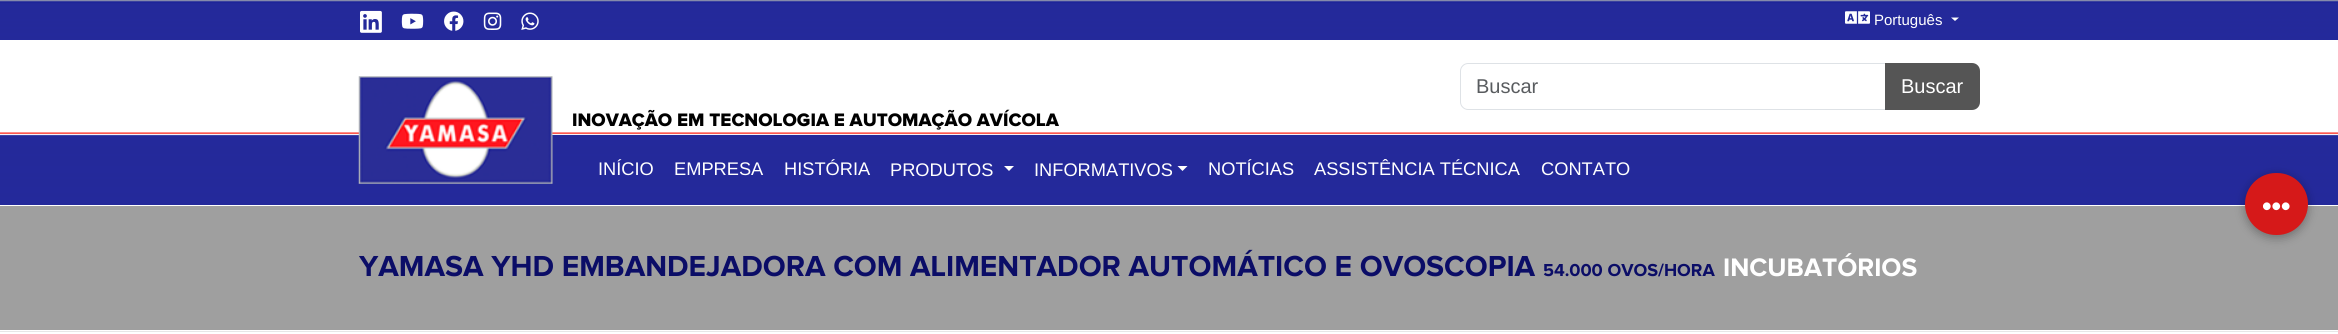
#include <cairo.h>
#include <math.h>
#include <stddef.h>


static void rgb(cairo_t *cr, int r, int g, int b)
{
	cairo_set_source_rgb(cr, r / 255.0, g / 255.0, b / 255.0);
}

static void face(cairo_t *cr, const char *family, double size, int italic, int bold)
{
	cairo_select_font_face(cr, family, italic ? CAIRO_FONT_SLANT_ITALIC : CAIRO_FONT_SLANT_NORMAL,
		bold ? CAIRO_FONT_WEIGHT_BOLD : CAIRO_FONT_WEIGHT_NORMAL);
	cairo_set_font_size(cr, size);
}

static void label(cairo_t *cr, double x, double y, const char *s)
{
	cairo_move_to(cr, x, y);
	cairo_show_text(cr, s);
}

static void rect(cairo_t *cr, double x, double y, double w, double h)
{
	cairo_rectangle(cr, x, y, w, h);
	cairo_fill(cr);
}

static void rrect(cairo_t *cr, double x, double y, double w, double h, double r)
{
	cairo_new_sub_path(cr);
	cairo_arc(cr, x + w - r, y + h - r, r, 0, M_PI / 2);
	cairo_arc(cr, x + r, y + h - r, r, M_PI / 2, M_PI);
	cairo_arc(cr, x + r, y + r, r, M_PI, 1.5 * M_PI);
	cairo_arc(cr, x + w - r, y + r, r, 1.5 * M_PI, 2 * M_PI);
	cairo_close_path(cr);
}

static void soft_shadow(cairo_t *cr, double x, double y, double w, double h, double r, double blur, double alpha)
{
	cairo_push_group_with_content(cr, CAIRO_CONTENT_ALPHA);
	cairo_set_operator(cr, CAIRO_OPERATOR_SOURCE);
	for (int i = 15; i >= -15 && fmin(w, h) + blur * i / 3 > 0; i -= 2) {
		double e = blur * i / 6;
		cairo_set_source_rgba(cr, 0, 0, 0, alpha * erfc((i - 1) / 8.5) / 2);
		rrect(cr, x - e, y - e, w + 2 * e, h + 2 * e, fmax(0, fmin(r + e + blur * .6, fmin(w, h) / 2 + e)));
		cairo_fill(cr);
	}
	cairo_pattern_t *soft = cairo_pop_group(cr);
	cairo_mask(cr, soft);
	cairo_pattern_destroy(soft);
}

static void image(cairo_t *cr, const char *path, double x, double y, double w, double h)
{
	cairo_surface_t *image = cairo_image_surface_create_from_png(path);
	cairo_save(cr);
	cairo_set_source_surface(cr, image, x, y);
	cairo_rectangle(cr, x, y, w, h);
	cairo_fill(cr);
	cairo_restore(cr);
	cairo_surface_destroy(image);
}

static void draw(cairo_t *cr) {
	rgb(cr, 255, 255, 255);
	cairo_paint(cr);
	image(cr, "image0.png", 0, 0, 2338, 40);
	image(cr, "image1.png", 360, 10, 22, 23);
	image(cr, "image2.png", 401, 13, 23, 16);
	image(cr, "image3.png", 444, 11, 20, 20);
	image(cr, "image4.png", 483, 12, 19, 18);
	image(cr, "image5.png", 521, 12, 18, 18);
	image(cr, "image6.png", 1845, 11, 25, 13);
	face(cr, "Liberation Sans", 15, 0, 0);
	rgb(cr, 255, 255, 255);
	label(cr, 1874, 25, "Português");
	cairo_new_path(cr);
	cairo_move_to(cr, 1951, 17.5);
	cairo_line_to(cr, 1959, 17.5);
	cairo_line_to(cr, 1955, 21);
	cairo_close_path(cr);
	cairo_fill(cr);
	cairo_new_path(cr);
	cairo_move_to(cr, 1468, 63.5);
	cairo_line_to(cr, 1885.5, 63.5);
	cairo_line_to(cr, 1885.5, 109.5);
	cairo_line_to(cr, 1468, 109.5);
	cairo_curve_to(cr, 1464, 109.5, 1460.5, 106, 1460.5, 102);
	cairo_line_to(cr, 1460.5, 71);
	cairo_curve_to(cr, 1460.5, 67, 1464, 63.5, 1468, 63.5);
	cairo_close_path(cr);
	rgb(cr, 222, 226, 230);
	cairo_set_line_width(cr, 1);
	cairo_stroke(cr);
	face(cr, "Liberation Sans", 20, 0, 0);
	rgb(cr, 89, 92, 95);
	label(cr, 1476, 93, "Buscar");
	rgb(cr, 85, 85, 85);
	cairo_new_path(cr);
	cairo_move_to(cr, 1885, 63);
	cairo_line_to(cr, 1972, 63);
	cairo_curve_to(cr, 1976.5, 63, 1980, 66.5, 1980, 71);
	cairo_line_to(cr, 1980, 102);
	cairo_curve_to(cr, 1980, 106.5, 1976.5, 110, 1972, 110);
	cairo_line_to(cr, 1885, 110);
	cairo_close_path(cr);
	cairo_fill(cr);
	rgb(cr, 255, 255, 255);
	label(cr, 1901, 93, "Buscar");
	face(cr, "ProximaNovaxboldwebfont", 18.75, 0, 1);
	rgb(cr, 0, 0, 0);
	label(cr, 572, 126, "INOVAÇÃO EM TECNOLOGIA E AUTOMAÇÃO AVÍCOLA");
	image(cr, "image7.png", 0, 132, 2338, 73);
	rgb(cr, 36, 41, 155);
	rect(cr, 360, 135, 1620, 1);
	image(cr, "image8.png", 358, 76, 195, 108);
	face(cr, "Liberation Sans", 18.25, 0, 0);
	rgb(cr, 255, 255, 255);
	label(cr, 598, 175, "INÍCIO");
	label(cr, 674, 175, "EMPRESA");
	label(cr, 784, 175, "HISTÓRIA");
	label(cr, 890, 176, "PRODUTOS");
	cairo_new_path(cr);
	cairo_move_to(cr, 1004, 166);
	cairo_line_to(cr, 1014, 166);
	cairo_line_to(cr, 1009, 171);
	cairo_close_path(cr);
	cairo_fill(cr);
	label(cr, 1034, 176, "INFORMATIVOS");
	cairo_new_path(cr);
	cairo_move_to(cr, 1177.5, 166);
	cairo_line_to(cr, 1187.5, 166);
	cairo_line_to(cr, 1182.5, 171);
	cairo_close_path(cr);
	cairo_fill(cr);
	label(cr, 1208, 175, "NOTÍCIAS");
	label(cr, 1314, 175, "ASSISTÊNCIA TÉCNICA");
	label(cr, 1541, 175, "CONTATO");
	rgb(cr, 159, 159, 159);
	rect(cr, 0, 206, 2338, 124);
	rgb(cr, 0, 0, 0);
	soft_shadow(cr, 2245, 175, 63, 63, 31.5, 5, 0.3);
	rgb(cr, 214, 25, 25);
	rrect(cr, 2245, 173, 63, 62, 31);
	cairo_fill(cr);
	image(cr, "image9.png", 2263, 202, 27, 9);
	face(cr, "Proxima Nova", 30, 0, 1);
	rgb(cr, 11, 13, 103);
	label(cr, 359, 276, "YAMASA YHD EMBANDEJADORA COM ALIMENTADOR AUTOMÁTICO E OVOSCOPIA");
	face(cr, "Proxima Nova", 18, 0, 1);
	label(cr, 1543, 276, "54.000 OVOS/HORA");
	face(cr, "Proxima Nova", 26.25, 0, 1);
	rgb(cr, 255, 255, 255);
	label(cr, 1723, 276, "INCUBATÓRIOS");
	rgb(cr, 231, 231, 231);
	rect(cr, 0, 331, 2338, 1);
}

int main(void) {
	cairo_surface_t *surface = cairo_image_surface_create(CAIRO_FORMAT_RGB24, 2338, 334);
	cairo_t *cr = cairo_create(surface);
	cairo_font_options_t *options = cairo_font_options_create();
	cairo_font_options_set_hint_metrics(options, CAIRO_HINT_METRICS_OFF);
	cairo_font_options_set_hint_style(options, CAIRO_HINT_STYLE_NONE);
	cairo_set_font_options(cr, options);
	cairo_set_miter_limit(cr, 4);
	draw(cr);
	cairo_surface_write_to_png(surface, "render.png");
	cairo_font_options_destroy(options);
	cairo_destroy(cr);
	cairo_surface_destroy(surface);
	return 0;
}
